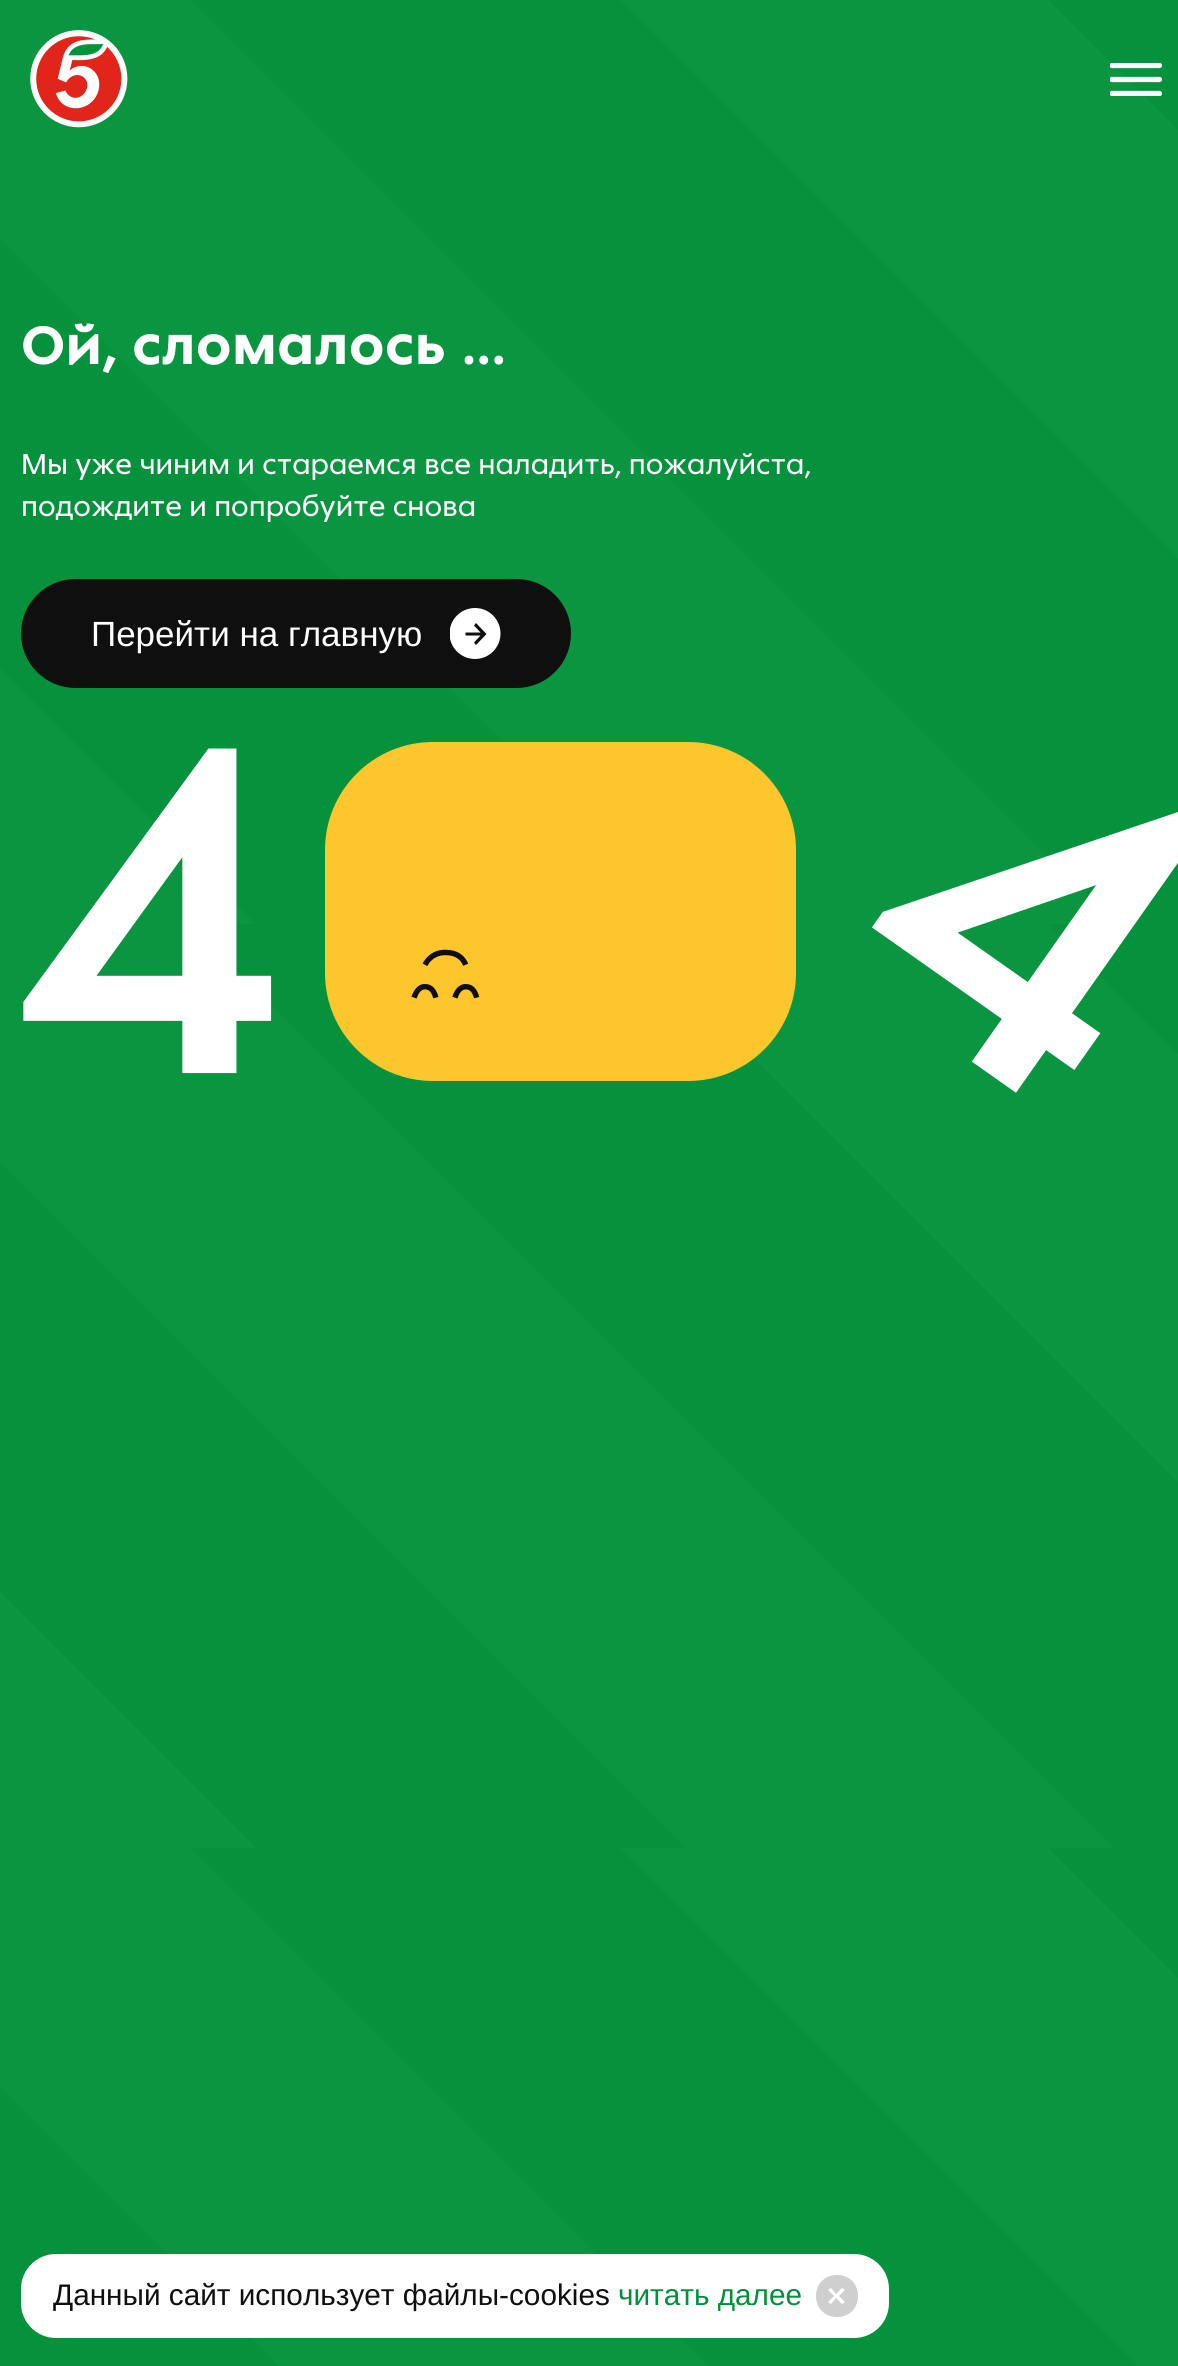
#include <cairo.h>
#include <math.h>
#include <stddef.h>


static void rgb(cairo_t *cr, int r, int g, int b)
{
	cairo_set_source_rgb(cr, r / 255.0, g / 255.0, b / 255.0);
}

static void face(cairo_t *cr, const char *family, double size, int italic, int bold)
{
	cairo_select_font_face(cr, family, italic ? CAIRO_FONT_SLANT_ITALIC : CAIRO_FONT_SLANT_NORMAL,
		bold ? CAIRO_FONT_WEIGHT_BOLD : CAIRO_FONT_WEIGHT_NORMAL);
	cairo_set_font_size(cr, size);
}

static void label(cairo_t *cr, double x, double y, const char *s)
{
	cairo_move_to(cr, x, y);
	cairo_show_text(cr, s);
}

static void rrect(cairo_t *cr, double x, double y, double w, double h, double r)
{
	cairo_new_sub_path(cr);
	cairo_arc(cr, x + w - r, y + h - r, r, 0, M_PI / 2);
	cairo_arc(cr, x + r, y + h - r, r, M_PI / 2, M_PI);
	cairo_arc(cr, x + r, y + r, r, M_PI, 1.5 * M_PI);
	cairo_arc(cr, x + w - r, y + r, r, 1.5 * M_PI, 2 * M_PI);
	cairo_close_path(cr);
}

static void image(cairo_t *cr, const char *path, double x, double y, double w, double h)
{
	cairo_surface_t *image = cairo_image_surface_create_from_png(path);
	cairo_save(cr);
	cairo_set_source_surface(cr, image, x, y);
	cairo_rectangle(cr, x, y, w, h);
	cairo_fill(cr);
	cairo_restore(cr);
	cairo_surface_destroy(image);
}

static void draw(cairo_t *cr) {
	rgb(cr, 255, 255, 255);
	cairo_paint(cr);
	image(cr, "image0.png", 0, 0, 1178, 2366);
	image(cr, "image1.png", 30, 30, 98, 98);
	cairo_save(cr);
	cairo_rectangle(cr, 1110, 63, 52, 33);
	cairo_clip(cr);
	cairo_new_path(cr);
	cairo_move_to(cr, 1112, 65.5);
	cairo_line_to(cr, 1159.5, 65.5);
	cairo_move_to(cr, 1112, 93.5);
	cairo_line_to(cr, 1159.5, 93.5);
	cairo_move_to(cr, 1112, 79.5);
	cairo_line_to(cr, 1159.5, 79.5);
	rgb(cr, 255, 255, 255);
	cairo_set_line_width(cr, 5.2);
	cairo_set_line_cap(cr, CAIRO_LINE_CAP_ROUND);
	cairo_stroke(cr);
	cairo_restore(cr);
	face(cr, "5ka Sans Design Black", 56, 0, 0);
	rgb(cr, 255, 255, 255);
	label(cr, 21, 364, "Ой, сломалось ...");
	face(cr, "5ka Sans Design", 29.75, 0, 0);
	label(cr, 21, 474, "Мы уже чиним и стараемся все наладить, пожалуйста,");
	label(cr, 21, 516, "подождите и попробуйте снова");
	rgb(cr, 15, 15, 15);
	rrect(cr, 21, 579, 550, 109, 54.5);
	cairo_fill(cr);
	face(cr, "Liberation Sans", 35, 0, 0);
	rgb(cr, 255, 255, 255);
	label(cr, 91, 646, "Перейти на главную");
	cairo_save(cr);
	cairo_rectangle(cr, 450, 607, 51, 53);
	cairo_clip(cr);
	cairo_arc(cr, 475, 633.5, 25.5, 0, 2 * M_PI);
	cairo_fill(cr);
	cairo_restore(cr);
	rgb(cr, 15, 15, 15);
	cairo_set_fill_rule(cr, CAIRO_FILL_RULE_EVEN_ODD);
	cairo_new_path(cr);
	cairo_move_to(cr, 476, 623);
	cairo_line_to(cr, 474, 625.5);
	cairo_line_to(cr, 480.5, 632.5);
	cairo_line_to(cr, 465.5, 632.5);
	cairo_line_to(cr, 465.5, 635.5);
	cairo_line_to(cr, 480.5, 635.5);
	cairo_line_to(cr, 474, 642.5);
	cairo_line_to(cr, 476, 645);
	cairo_line_to(cr, 486.5, 634);
	cairo_close_path(cr);
	cairo_fill(cr);
	image(cr, "image2.png", 23, 742, 1155, 351);
	rgb(cr, 255, 255, 255);
	rrect(cr, 21, 2254, 868, 84, 35);
	cairo_fill(cr);
	face(cr, "Liberation Sans", 29.75, 0, 0);
	rgb(cr, 15, 15, 15);
	label(cr, 53, 2305, "Данный сайт использует файлы-cookies");
	rgb(cr, 0, 146, 58);
	label(cr, 618, 2305, "читать далее");
	rgb(cr, 207, 207, 207);
	cairo_new_path(cr);
	cairo_move_to(cr, 858, 2296);
	cairo_curve_to(cr, 858, 2324, 816, 2324, 816, 2296);
	cairo_curve_to(cr, 816, 2268, 858, 2268, 858, 2296);
	cairo_close_path(cr);
	cairo_move_to(cr, 836, 2298);
	cairo_line_to(cr, 831, 2304);
	cairo_line_to(cr, 828, 2302);
	cairo_line_to(cr, 834, 2296);
	cairo_line_to(cr, 828, 2290);
	cairo_line_to(cr, 831, 2288);
	cairo_line_to(cr, 836, 2294);
	cairo_line_to(cr, 842, 2288);
	cairo_line_to(cr, 845, 2290);
	cairo_line_to(cr, 839, 2296);
	cairo_line_to(cr, 845, 2302);
	cairo_line_to(cr, 842, 2304);
	cairo_close_path(cr);
	cairo_fill(cr);
}

int main(void) {
	cairo_surface_t *surface = cairo_image_surface_create(CAIRO_FORMAT_RGB24, 1178, 2366);
	cairo_t *cr = cairo_create(surface);
	cairo_font_options_t *options = cairo_font_options_create();
	cairo_font_options_set_hint_metrics(options, CAIRO_HINT_METRICS_OFF);
	cairo_font_options_set_hint_style(options, CAIRO_HINT_STYLE_NONE);
	cairo_set_font_options(cr, options);
	cairo_set_miter_limit(cr, 4);
	draw(cr);
	cairo_surface_write_to_png(surface, "render.png");
	cairo_font_options_destroy(options);
	cairo_destroy(cr);
	cairo_surface_destroy(surface);
	return 0;
}
